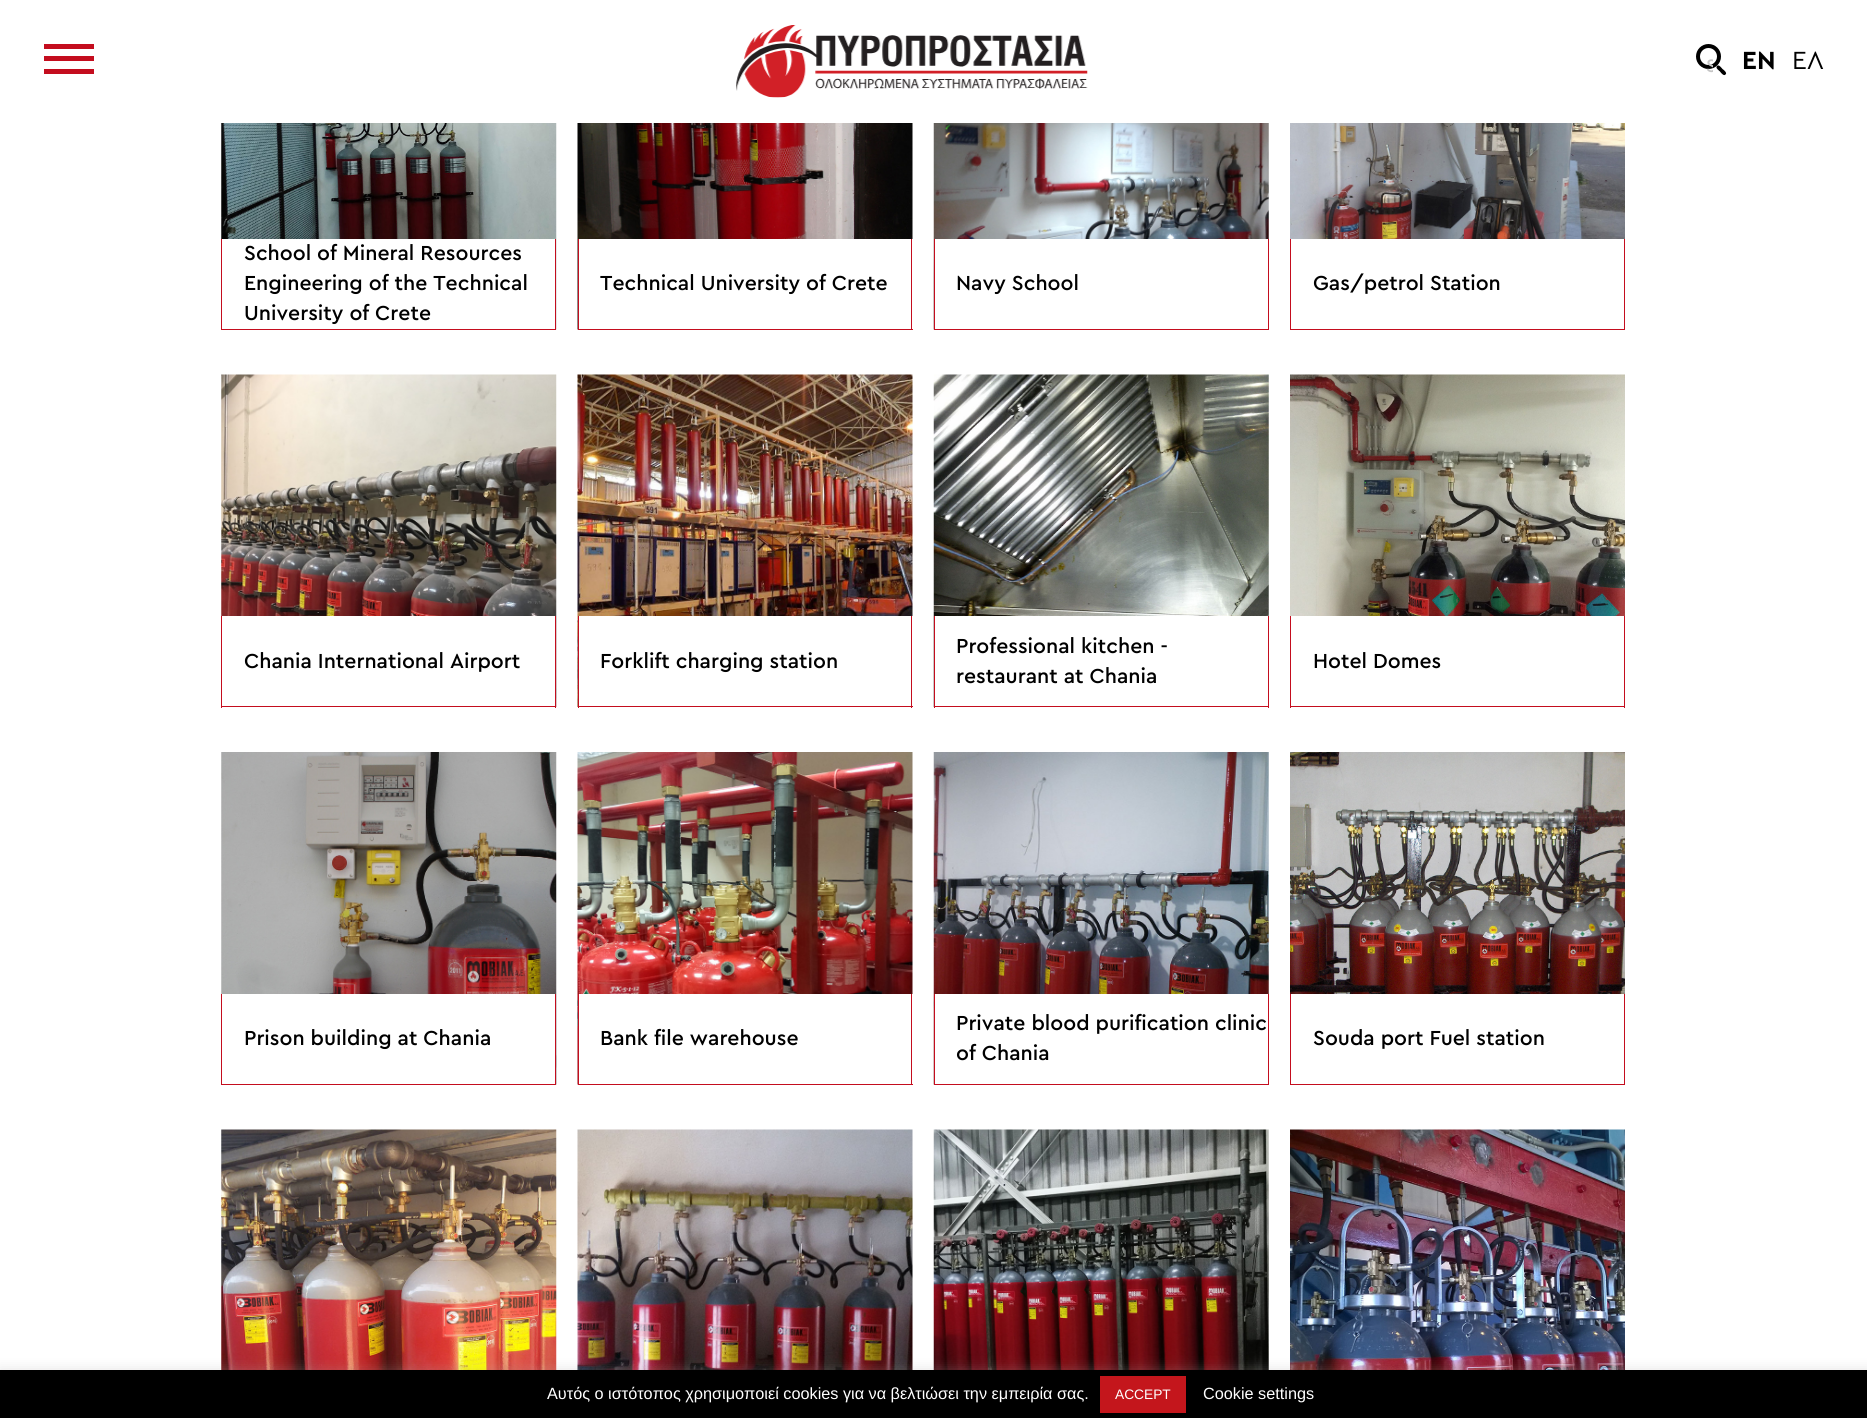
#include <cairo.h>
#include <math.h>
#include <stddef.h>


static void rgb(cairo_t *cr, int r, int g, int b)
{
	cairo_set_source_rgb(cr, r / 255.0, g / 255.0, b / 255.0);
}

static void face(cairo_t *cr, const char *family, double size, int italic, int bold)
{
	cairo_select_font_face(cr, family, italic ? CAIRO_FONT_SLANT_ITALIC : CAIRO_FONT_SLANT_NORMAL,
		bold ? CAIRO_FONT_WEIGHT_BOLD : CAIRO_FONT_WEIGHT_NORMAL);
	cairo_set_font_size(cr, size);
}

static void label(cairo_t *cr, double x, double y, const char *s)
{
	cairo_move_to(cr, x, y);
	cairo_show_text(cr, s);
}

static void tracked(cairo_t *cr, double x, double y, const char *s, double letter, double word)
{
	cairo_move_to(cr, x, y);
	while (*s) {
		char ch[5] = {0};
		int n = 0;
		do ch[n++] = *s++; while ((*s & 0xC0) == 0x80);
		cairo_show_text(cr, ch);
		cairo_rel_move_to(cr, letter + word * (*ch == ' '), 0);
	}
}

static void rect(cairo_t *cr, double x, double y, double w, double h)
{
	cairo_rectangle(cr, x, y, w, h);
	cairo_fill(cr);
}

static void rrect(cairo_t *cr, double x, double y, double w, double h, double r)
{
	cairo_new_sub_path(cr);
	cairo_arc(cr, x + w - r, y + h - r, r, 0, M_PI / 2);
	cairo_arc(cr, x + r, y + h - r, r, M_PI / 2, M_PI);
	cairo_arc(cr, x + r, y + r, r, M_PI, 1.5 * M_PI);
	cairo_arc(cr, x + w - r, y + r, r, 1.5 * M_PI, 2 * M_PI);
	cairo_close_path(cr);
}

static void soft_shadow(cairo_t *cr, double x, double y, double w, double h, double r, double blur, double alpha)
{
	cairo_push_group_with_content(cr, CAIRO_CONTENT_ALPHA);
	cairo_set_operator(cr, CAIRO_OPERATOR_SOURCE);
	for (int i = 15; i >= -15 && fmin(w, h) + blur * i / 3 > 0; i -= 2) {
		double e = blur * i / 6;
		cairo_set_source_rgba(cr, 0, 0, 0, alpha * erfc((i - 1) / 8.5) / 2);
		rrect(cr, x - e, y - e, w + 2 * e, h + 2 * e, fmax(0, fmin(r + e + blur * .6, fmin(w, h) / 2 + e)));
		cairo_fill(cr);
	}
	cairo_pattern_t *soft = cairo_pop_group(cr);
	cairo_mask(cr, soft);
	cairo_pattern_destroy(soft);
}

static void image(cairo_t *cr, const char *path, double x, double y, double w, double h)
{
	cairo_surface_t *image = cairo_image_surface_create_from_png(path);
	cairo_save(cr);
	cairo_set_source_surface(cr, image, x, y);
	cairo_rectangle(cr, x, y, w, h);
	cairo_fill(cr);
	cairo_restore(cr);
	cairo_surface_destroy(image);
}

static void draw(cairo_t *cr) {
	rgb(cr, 255, 255, 255);
	cairo_paint(cr);
	rgb(cr, 196, 13, 30);
	rect(cr, 44, 56, 50, 5);
	rect(cr, 44, 44, 50, 5);
	rect(cr, 44, 69, 50, 5);
	image(cr, "image0.png", 736, 25, 352, 73);
	cairo_arc(cr, 1708.5, 56.5, 10.5, 0, 2 * M_PI);
	rgb(cr, 0, 0, 0);
	cairo_set_line_width(cr, 4);
	cairo_stroke(cr);
	cairo_save(cr);
	cairo_rectangle(cr, 1706, 55, 7, 24);
	cairo_clip(cr);
	face(cr, "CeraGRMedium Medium", 19, 0, 0);
	rgb(cr, 197, 197, 197);
	tracked(cr, 1706, 72, "S", 1, 0);
	cairo_restore(cr);
	cairo_new_path(cr);
	cairo_move_to(cr, 1717, 66);
	cairo_curve_to(cr, 1719, 64, 1721.5, 68, 1722.5, 69);
	cairo_curve_to(cr, 1724, 70, 1727.5, 73, 1725.5, 74.5);
	cairo_curve_to(cr, 1724, 76.5, 1721, 73, 1720, 71.5);
	cairo_curve_to(cr, 1719, 70.5, 1715, 68, 1717, 66);
	cairo_close_path(cr);
	cairo_fill(cr);
	face(cr, "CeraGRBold", 26, 0, 1);
	label(cr, 1742, 69, "EN");
	face(cr, "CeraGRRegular", 26, 0, 0);
	label(cr, 1792, 69, "ΕΛ");
	image(cr, "image1.png", 221, 123, 336, 207);
	rgb(cr, 255, 255, 255);
	rect(cr, 222, 239, 333, 90);
	rgb(cr, 196, 13, 30);
	rect(cr, 555, 239, 1, 91);
	rect(cr, 221, 329, 335, 1);
	rect(cr, 221, 239, 1, 91);
	face(cr, "CeraGRMedium Medium", 21.25, 0, 0);
	rgb(cr, 0, 0, 0);
	label(cr, 244, 260, "School of Mineral Resources");
	label(cr, 244, 290, "Engineering of the Technical");
	label(cr, 244, 320, "University of Crete");
	image(cr, "image2.png", 577, 123, 336, 207);
	rgb(cr, 255, 255, 255);
	rect(cr, 579, 239, 334, 90);
	rgb(cr, 196, 13, 30);
	rect(cr, 911, 239, 1, 91);
	rect(cr, 578, 329, 335, 1);
	rect(cr, 578, 239, 1, 91);
	rgb(cr, 0, 0, 0);
	label(cr, 600, 290, "Technical University of Crete");
	image(cr, "image3.png", 933, 123, 336, 207);
	rgb(cr, 255, 255, 255);
	rect(cr, 935, 239, 333, 90);
	rgb(cr, 196, 13, 30);
	rect(cr, 1268, 239, 1, 91);
	rect(cr, 934, 329, 335, 1);
	rect(cr, 934, 239, 1, 91);
	rgb(cr, 0, 0, 0);
	label(cr, 956, 290, "Navy School");
	image(cr, "image4.png", 1290, 123, 335, 116);
	rgb(cr, 196, 13, 30);
	rect(cr, 1624, 239, 1, 91);
	rect(cr, 1290, 329, 335, 1);
	rect(cr, 1290, 239, 1, 91);
	rgb(cr, 0, 0, 0);
	label(cr, 1313, 290, "Gas/petrol Station");
	image(cr, "image5.png", 221, 374, 336, 333);
	rgb(cr, 255, 255, 255);
	rect(cr, 222, 616, 333, 91);
	rgb(cr, 196, 13, 30);
	rect(cr, 555, 616, 1, 92);
	rect(cr, 221, 706, 335, 1);
	rect(cr, 221, 616, 1, 92);
	rgb(cr, 0, 0, 0);
	label(cr, 244, 668, "Chania International Airport");
	image(cr, "image6.png", 577, 374, 336, 333);
	rgb(cr, 255, 255, 255);
	rect(cr, 579, 616, 334, 91);
	rgb(cr, 196, 13, 30);
	rect(cr, 911, 616, 1, 92);
	rect(cr, 578, 706, 335, 1);
	rect(cr, 578, 616, 1, 92);
	rgb(cr, 0, 0, 0);
	label(cr, 600, 668, "Forklift charging station");
	image(cr, "image7.png", 933, 374, 336, 333);
	rgb(cr, 255, 255, 255);
	rect(cr, 935, 616, 333, 91);
	rgb(cr, 196, 13, 30);
	rect(cr, 1268, 616, 1, 92);
	rect(cr, 934, 706, 335, 1);
	rect(cr, 934, 616, 1, 92);
	rgb(cr, 0, 0, 0);
	label(cr, 956, 653, "Professional kitchen -");
	label(cr, 956, 683, "restaurant at Chania");
	image(cr, "image8.png", 1290, 374, 335, 242);
	rgb(cr, 196, 13, 30);
	rect(cr, 1624, 616, 1, 92);
	rect(cr, 1290, 706, 335, 1);
	rect(cr, 1290, 616, 1, 92);
	rgb(cr, 0, 0, 0);
	label(cr, 1313, 668, "Hotel Domes");
	image(cr, "image9.png", 221, 752, 336, 333);
	rgb(cr, 255, 255, 255);
	rect(cr, 222, 994, 333, 90);
	rgb(cr, 196, 13, 30);
	rect(cr, 555, 994, 1, 91);
	rect(cr, 221, 1084, 335, 1);
	rect(cr, 221, 994, 1, 91);
	rgb(cr, 0, 0, 0);
	label(cr, 244, 1045, "Prison building at Chania");
	image(cr, "image10.png", 577, 752, 336, 333);
	rgb(cr, 255, 255, 255);
	rect(cr, 579, 994, 334, 90);
	rgb(cr, 196, 13, 30);
	rect(cr, 911, 994, 1, 91);
	rect(cr, 578, 1084, 335, 1);
	rect(cr, 578, 994, 1, 91);
	rgb(cr, 0, 0, 0);
	label(cr, 600, 1045, "Bank file warehouse");
	image(cr, "image11.png", 933, 752, 336, 333);
	rgb(cr, 255, 255, 255);
	rect(cr, 935, 994, 333, 90);
	rgb(cr, 196, 13, 30);
	rect(cr, 1268, 994, 1, 91);
	rect(cr, 934, 1084, 335, 1);
	rect(cr, 934, 994, 1, 91);
	rgb(cr, 0, 0, 0);
	label(cr, 956, 1030, "Private blood purification clinic");
	label(cr, 956, 1060, "of Chania");
	image(cr, "image12.png", 1290, 752, 335, 242);
	rgb(cr, 196, 13, 30);
	rect(cr, 1624, 994, 1, 91);
	rect(cr, 1290, 1084, 335, 1);
	rect(cr, 1290, 994, 1, 91);
	rgb(cr, 0, 0, 0);
	label(cr, 1313, 1045, "Souda port Fuel station");
	image(cr, "image13.png", 221, 1129, 336, 241);
	image(cr, "image14.png", 577, 1129, 336, 241);
	image(cr, "image15.png", 933, 1129, 336, 241);
	image(cr, "image16.png", 1290, 1129, 335, 241);
	rgb(cr, 172, 171, 171);
	soft_shadow(cr, 0, 1369, 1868, 49, 0, 6, 0.3);
	rgb(cr, 0, 0, 0);
	rect(cr, 0, 1370, 1867, 48);
	face(cr, "Liberation Sans", 16.25, 0, 0);
	rgb(cr, 255, 255, 255);
	label(cr, 547, 1399, "Αυτός ο ιστότοπος χρησιμοποιεί cookies για να βελτιώσει την εμπειρία σας.");
	rgb(cr, 196, 22, 28);
	rect(cr, 1100, 1376, 86, 37);
	face(cr, "Liberation Sans", 13.75, 0, 0);
	rgb(cr, 255, 255, 255);
	label(cr, 1115, 1399, "ACCEPT");
	face(cr, "Liberation Sans", 16.25, 0, 0);
	label(cr, 1203, 1399, "Cookie settings");
}

int main(void) {
	cairo_surface_t *surface = cairo_image_surface_create(CAIRO_FORMAT_RGB24, 1867, 1418);
	cairo_t *cr = cairo_create(surface);
	cairo_font_options_t *options = cairo_font_options_create();
	cairo_font_options_set_hint_metrics(options, CAIRO_HINT_METRICS_OFF);
	cairo_font_options_set_hint_style(options, CAIRO_HINT_STYLE_NONE);
	cairo_set_font_options(cr, options);
	cairo_set_miter_limit(cr, 4);
	draw(cr);
	cairo_surface_write_to_png(surface, "render.png");
	cairo_font_options_destroy(options);
	cairo_destroy(cr);
	cairo_surface_destroy(surface);
	return 0;
}
